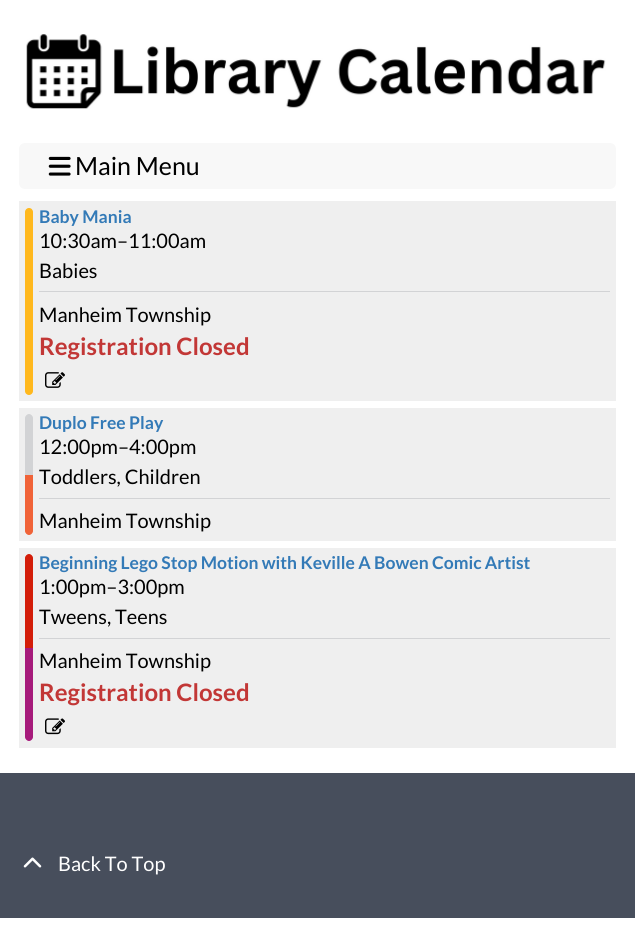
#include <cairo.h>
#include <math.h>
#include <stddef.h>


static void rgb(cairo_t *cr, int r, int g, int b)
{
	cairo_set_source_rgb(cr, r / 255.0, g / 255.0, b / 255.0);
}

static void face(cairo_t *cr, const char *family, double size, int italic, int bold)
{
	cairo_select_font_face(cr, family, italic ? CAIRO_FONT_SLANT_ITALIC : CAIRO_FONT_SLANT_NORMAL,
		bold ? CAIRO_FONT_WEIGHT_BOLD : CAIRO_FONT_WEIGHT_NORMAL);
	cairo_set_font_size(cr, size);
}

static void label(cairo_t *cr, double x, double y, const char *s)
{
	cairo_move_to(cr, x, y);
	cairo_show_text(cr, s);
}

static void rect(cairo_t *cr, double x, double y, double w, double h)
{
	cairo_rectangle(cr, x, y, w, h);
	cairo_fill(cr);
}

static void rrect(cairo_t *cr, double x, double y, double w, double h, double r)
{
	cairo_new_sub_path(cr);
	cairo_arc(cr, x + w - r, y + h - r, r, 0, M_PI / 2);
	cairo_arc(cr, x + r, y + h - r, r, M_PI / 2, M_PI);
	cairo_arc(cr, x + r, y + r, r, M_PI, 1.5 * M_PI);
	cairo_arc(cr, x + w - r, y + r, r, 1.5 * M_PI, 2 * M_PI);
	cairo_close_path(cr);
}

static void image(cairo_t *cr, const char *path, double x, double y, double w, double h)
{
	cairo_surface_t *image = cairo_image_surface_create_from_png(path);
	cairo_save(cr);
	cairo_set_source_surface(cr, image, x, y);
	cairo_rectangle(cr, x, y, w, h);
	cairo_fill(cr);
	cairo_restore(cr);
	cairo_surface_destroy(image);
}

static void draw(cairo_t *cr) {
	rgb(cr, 255, 255, 255);
	cairo_paint(cr);
	image(cr, "image0.png", 26, 34, 580, 75);
	rgb(cr, 248, 248, 248);
	rrect(cr, 19, 143, 597, 46, 6);
	cairo_fill(cr);
	image(cr, "image1.png", 48, 156, 23, 20);
	face(cr, "Lato", 25, 0, 0);
	rgb(cr, 0, 0, 0);
	label(cr, 75, 175, "Main Menu");
	rgb(cr, 239, 239, 239);
	rect(cr, 19, 201, 597, 200);
	rgb(cr, 255, 184, 29);
	rrect(cr, 25, 208, 8, 187, 4);
	cairo_fill(cr);
	face(cr, "Lato", 17.5, 0, 1);
	rgb(cr, 51, 122, 183);
	label(cr, 39, 223, "Baby Mania");
	face(cr, "Lato", 20, 0, 0);
	rgb(cr, 0, 0, 0);
	label(cr, 39, 248, "10:30am–11:00am");
	label(cr, 39, 278, "Babies");
	rgb(cr, 210, 211, 213);
	rect(cr, 39, 291, 571, 1);
	rgb(cr, 0, 0, 0);
	label(cr, 39, 322, "Manheim Township");
	face(cr, "Lato", 24, 0, 1);
	rgb(cr, 194, 55, 54);
	label(cr, 39, 355, "Registration Closed");
	image(cr, "image2.png", 45, 372, 20, 16);
	rgb(cr, 239, 239, 239);
	rect(cr, 19, 408, 597, 133);
	rgb(cr, 210, 211, 213);
	cairo_new_path(cr);
	cairo_move_to(cr, 29, 414);
	cairo_curve_to(cr, 31, 414, 33, 416, 33, 418);
	cairo_line_to(cr, 33, 475);
	cairo_line_to(cr, 25, 475);
	cairo_line_to(cr, 25, 418);
	cairo_curve_to(cr, 25, 416, 27, 414, 29, 414);
	cairo_close_path(cr);
	cairo_fill(cr);
	rgb(cr, 240, 99, 56);
	cairo_new_path(cr);
	cairo_move_to(cr, 25, 475);
	cairo_line_to(cr, 33, 475);
	cairo_line_to(cr, 33, 531);
	cairo_curve_to(cr, 33, 533, 31, 535, 29, 535);
	cairo_curve_to(cr, 27, 535, 25, 533, 25, 531);
	cairo_close_path(cr);
	cairo_fill(cr);
	face(cr, "Lato", 17.5, 0, 1);
	rgb(cr, 51, 122, 183);
	label(cr, 39, 429, "Duplo Free Play");
	face(cr, "Lato", 20, 0, 0);
	rgb(cr, 0, 0, 0);
	label(cr, 39, 454, "12:00pm–4:00pm");
	label(cr, 39, 484, "Toddlers, Children");
	rgb(cr, 210, 211, 213);
	rect(cr, 39, 498, 571, 1);
	rgb(cr, 0, 0, 0);
	label(cr, 39, 528, "Manheim Township");
	rgb(cr, 239, 239, 239);
	rect(cr, 19, 548, 597, 200);
	rgb(cr, 211, 29, 9);
	cairo_new_path(cr);
	cairo_move_to(cr, 29, 554);
	cairo_curve_to(cr, 31, 554, 33, 556, 33, 558);
	cairo_line_to(cr, 33, 648);
	cairo_line_to(cr, 25, 648);
	cairo_line_to(cr, 25, 558);
	cairo_curve_to(cr, 25, 556, 27, 554, 29, 554);
	cairo_close_path(cr);
	cairo_fill(cr);
	rgb(cr, 166, 26, 123);
	cairo_new_path(cr);
	cairo_move_to(cr, 25, 648);
	cairo_line_to(cr, 33, 648);
	cairo_line_to(cr, 33, 737);
	cairo_curve_to(cr, 33, 739, 31, 741, 29, 741);
	cairo_curve_to(cr, 27, 741, 25, 739, 25, 737);
	cairo_close_path(cr);
	cairo_fill(cr);
	face(cr, "Lato", 17.5, 0, 1);
	rgb(cr, 51, 122, 183);
	label(cr, 39, 569, "Beginning Lego Stop Motion with Keville A Bowen Comic Artist");
	face(cr, "Lato", 20, 0, 0);
	rgb(cr, 0, 0, 0);
	label(cr, 39, 594, "1:00pm–3:00pm");
	label(cr, 39, 624, "Tweens, Teens");
	rgb(cr, 210, 211, 213);
	rect(cr, 39, 638, 571, 1);
	rgb(cr, 0, 0, 0);
	label(cr, 39, 668, "Manheim Township");
	face(cr, "Lato", 24, 0, 1);
	rgb(cr, 194, 55, 54);
	label(cr, 39, 701, "Registration Closed");
	image(cr, "image3.png", 45, 718, 20, 17);
	rgb(cr, 71, 78, 92);
	rect(cr, 0, 773, 635, 145);
	image(cr, "image4.png", 23, 857, 19, 11);
	face(cr, "Lato", 20, 0, 0);
	rgb(cr, 255, 255, 255);
	label(cr, 58, 871, "Back To Top");
}

int main(void) {
	cairo_surface_t *surface = cairo_image_surface_create(CAIRO_FORMAT_RGB24, 635, 945);
	cairo_t *cr = cairo_create(surface);
	cairo_font_options_t *options = cairo_font_options_create();
	cairo_font_options_set_hint_metrics(options, CAIRO_HINT_METRICS_OFF);
	cairo_font_options_set_hint_style(options, CAIRO_HINT_STYLE_NONE);
	cairo_set_font_options(cr, options);
	cairo_set_miter_limit(cr, 4);
	draw(cr);
	cairo_surface_write_to_png(surface, "render.png");
	cairo_font_options_destroy(options);
	cairo_destroy(cr);
	cairo_surface_destroy(surface);
	return 0;
}
